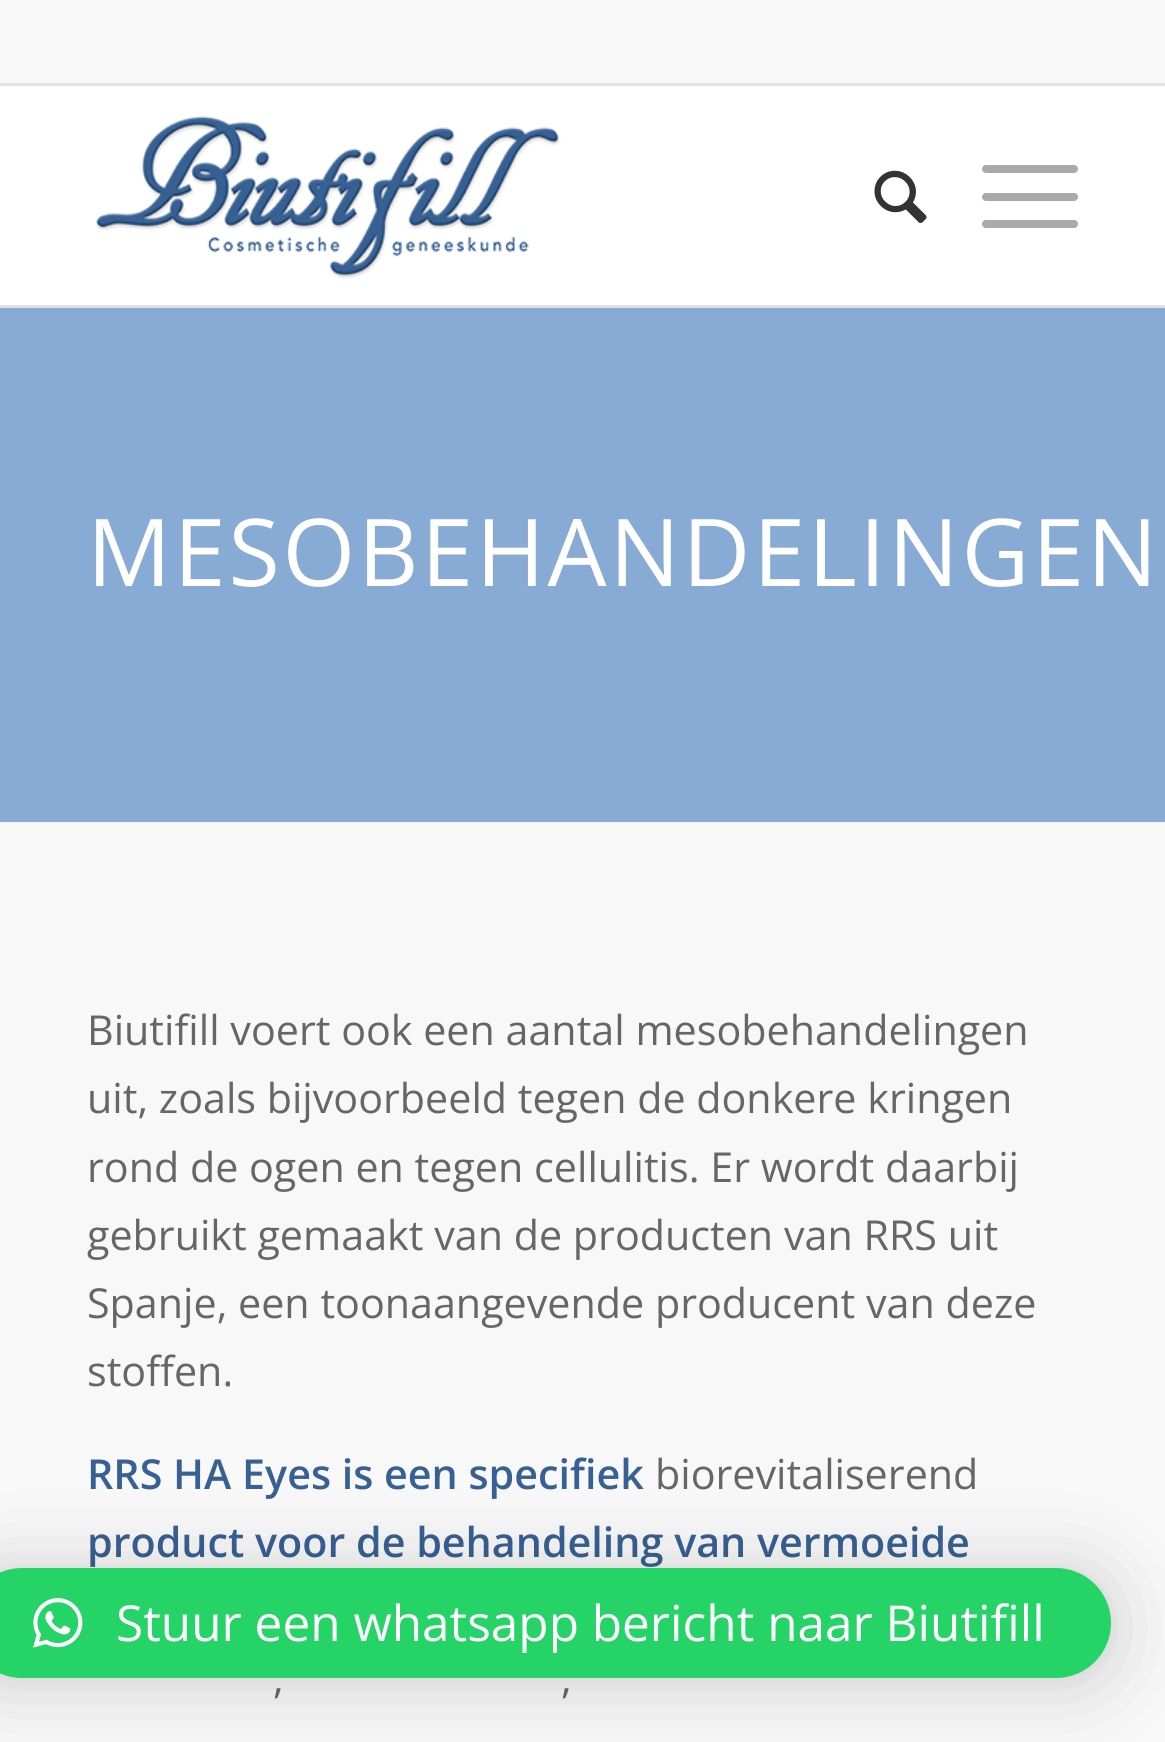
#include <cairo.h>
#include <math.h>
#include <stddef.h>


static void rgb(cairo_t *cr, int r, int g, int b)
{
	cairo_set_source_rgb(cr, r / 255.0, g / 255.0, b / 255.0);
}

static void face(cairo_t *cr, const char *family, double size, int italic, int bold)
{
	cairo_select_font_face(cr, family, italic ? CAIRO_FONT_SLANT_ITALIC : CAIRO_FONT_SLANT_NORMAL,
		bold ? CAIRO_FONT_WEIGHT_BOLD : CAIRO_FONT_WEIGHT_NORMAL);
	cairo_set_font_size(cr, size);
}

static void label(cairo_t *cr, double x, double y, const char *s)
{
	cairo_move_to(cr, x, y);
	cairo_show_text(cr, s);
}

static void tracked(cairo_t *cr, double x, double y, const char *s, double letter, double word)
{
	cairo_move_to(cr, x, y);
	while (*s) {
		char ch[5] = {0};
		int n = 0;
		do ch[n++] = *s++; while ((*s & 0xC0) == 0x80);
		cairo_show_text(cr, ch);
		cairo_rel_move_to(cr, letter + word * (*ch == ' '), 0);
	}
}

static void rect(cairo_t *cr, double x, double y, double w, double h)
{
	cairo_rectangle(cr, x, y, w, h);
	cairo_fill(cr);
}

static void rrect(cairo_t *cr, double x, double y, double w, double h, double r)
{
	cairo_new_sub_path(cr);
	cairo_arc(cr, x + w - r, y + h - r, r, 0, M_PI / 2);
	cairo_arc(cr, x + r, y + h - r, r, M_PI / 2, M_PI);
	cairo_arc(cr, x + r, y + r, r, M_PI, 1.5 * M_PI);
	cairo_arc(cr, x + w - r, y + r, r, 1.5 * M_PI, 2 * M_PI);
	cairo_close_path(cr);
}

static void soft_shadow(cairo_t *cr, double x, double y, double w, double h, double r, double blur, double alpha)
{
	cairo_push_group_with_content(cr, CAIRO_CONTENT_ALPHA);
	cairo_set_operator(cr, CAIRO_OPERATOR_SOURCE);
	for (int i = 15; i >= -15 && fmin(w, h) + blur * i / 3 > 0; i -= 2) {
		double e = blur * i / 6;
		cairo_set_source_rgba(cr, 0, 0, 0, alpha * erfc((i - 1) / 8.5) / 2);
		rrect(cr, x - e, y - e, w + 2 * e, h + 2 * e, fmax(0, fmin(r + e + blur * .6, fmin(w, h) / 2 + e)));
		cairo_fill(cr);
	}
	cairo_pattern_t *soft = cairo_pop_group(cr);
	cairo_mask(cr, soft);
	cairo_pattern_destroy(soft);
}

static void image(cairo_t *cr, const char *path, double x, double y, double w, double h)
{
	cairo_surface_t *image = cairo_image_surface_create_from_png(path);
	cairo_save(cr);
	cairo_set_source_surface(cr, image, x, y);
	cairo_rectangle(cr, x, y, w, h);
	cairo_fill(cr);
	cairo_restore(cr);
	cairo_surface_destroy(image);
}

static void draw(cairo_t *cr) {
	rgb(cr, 248, 248, 248);
	cairo_paint(cr);
	rgb(cr, 225, 225, 225);
	rect(cr, 0, 83, 1165, 3);
	rgb(cr, 255, 255, 255);
	rect(cr, 0, 86, 1165, 219);
	rgb(cr, 225, 225, 225);
	rect(cr, 0, 305, 1165, 3);
	image(cr, "image0.png", 88, 86, 479, 193);
	image(cr, "image1.png", 874, 170, 53, 53);
	rgb(cr, 170, 170, 170);
	rrect(cr, 982, 193, 96, 8, 4);
	cairo_fill(cr);
	rrect(cr, 982, 165, 96, 8, 4);
	cairo_fill(cr);
	rrect(cr, 982, 220, 96, 8, 4);
	cairo_fill(cr);
	rgb(cr, 135, 171, 213);
	rect(cr, 0, 308, 1165, 514);
	face(cr, "Open Sans", 93.5, 0, 0);
	rgb(cr, 255, 255, 255);
	tracked(cr, 87, 586, "MESOBEHANDELINGEN", 2.75, 0);
	face(cr, "Open Sans", 41.25, 0, 0);
	rgb(cr, 102, 102, 102);
	label(cr, 87, 1045, "Biutifill voert ook een aantal mesobehandelingen");
	label(cr, 87, 1113, "uit, zoals bijvoorbeeld tegen de donkere kringen");
	label(cr, 87, 1182, "rond de ogen en tegen cellulitis. Er wordt daarbij");
	label(cr, 87, 1250, "gebruikt gemaakt van de producten van RRS uit");
	label(cr, 87, 1318, "Spanje, een toonaangevende producent van deze");
	label(cr, 87, 1386, "stoffen.");
	face(cr, "Open Sans SemiBold", 41.25, 0, 0);
	rgb(cr, 55, 96, 147);
	label(cr, 87, 1489, "RRS HA Eyes is een specifiek");
	face(cr, "Open Sans", 41.25, 0, 0);
	rgb(cr, 102, 102, 102);
	label(cr, 655, 1489, "biorevitaliserend");
	face(cr, "Open Sans SemiBold", 41.25, 0, 0);
	rgb(cr, 55, 96, 147);
	label(cr, 87, 1557, "product voor de behandeling van vermoeide");
	face(cr, "Open Sans", 41.25, 0, 0);
	rgb(cr, 102, 102, 102);
	label(cr, 273, 1693, ",");
	label(cr, 561, 1693, ",");
	rgb(cr, 0, 0, 0);
	soft_shadow(cr, -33, 1573, 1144, 110, 55, 44, 0.16);
	soft_shadow(cr, -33, 1570, 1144, 110, 55, 8, 0.06);
	rgb(cr, 37, 211, 102);
	rrect(cr, -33, 1568, 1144, 110, 55);
	cairo_fill(cr);
	image(cr, "image2.png", 33, 1598, 50, 50);
	face(cr, "Open Sans", 49.5, 0, 0);
	rgb(cr, 255, 255, 255);
	label(cr, 116, 1641, "Stuur een whatsapp bericht naar Biutifill");
}

int main(void) {
	cairo_surface_t *surface = cairo_image_surface_create(CAIRO_FORMAT_RGB24, 1165, 1742);
	cairo_t *cr = cairo_create(surface);
	cairo_font_options_t *options = cairo_font_options_create();
	cairo_font_options_set_hint_metrics(options, CAIRO_HINT_METRICS_OFF);
	cairo_font_options_set_hint_style(options, CAIRO_HINT_STYLE_NONE);
	cairo_set_font_options(cr, options);
	cairo_set_miter_limit(cr, 4);
	draw(cr);
	cairo_surface_write_to_png(surface, "render.png");
	cairo_font_options_destroy(options);
	cairo_destroy(cr);
	cairo_surface_destroy(surface);
	return 0;
}
